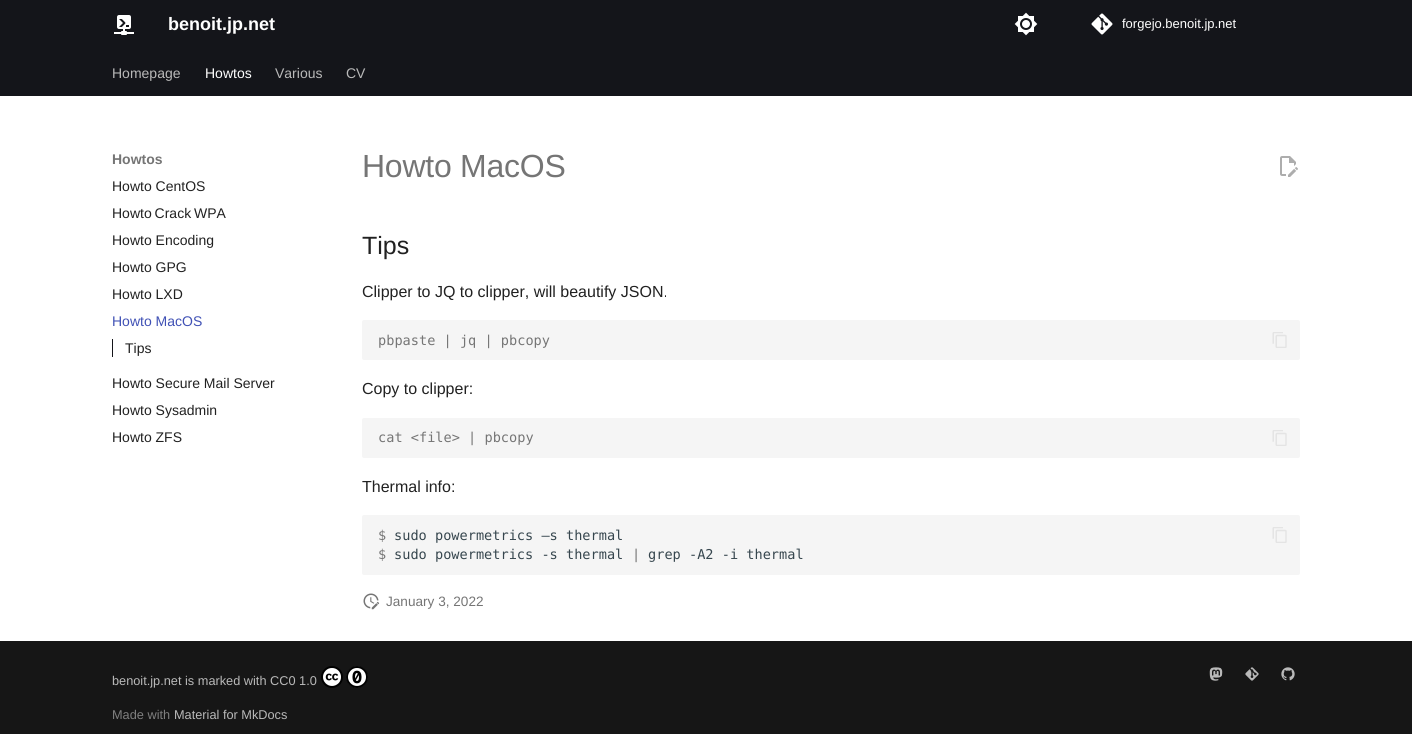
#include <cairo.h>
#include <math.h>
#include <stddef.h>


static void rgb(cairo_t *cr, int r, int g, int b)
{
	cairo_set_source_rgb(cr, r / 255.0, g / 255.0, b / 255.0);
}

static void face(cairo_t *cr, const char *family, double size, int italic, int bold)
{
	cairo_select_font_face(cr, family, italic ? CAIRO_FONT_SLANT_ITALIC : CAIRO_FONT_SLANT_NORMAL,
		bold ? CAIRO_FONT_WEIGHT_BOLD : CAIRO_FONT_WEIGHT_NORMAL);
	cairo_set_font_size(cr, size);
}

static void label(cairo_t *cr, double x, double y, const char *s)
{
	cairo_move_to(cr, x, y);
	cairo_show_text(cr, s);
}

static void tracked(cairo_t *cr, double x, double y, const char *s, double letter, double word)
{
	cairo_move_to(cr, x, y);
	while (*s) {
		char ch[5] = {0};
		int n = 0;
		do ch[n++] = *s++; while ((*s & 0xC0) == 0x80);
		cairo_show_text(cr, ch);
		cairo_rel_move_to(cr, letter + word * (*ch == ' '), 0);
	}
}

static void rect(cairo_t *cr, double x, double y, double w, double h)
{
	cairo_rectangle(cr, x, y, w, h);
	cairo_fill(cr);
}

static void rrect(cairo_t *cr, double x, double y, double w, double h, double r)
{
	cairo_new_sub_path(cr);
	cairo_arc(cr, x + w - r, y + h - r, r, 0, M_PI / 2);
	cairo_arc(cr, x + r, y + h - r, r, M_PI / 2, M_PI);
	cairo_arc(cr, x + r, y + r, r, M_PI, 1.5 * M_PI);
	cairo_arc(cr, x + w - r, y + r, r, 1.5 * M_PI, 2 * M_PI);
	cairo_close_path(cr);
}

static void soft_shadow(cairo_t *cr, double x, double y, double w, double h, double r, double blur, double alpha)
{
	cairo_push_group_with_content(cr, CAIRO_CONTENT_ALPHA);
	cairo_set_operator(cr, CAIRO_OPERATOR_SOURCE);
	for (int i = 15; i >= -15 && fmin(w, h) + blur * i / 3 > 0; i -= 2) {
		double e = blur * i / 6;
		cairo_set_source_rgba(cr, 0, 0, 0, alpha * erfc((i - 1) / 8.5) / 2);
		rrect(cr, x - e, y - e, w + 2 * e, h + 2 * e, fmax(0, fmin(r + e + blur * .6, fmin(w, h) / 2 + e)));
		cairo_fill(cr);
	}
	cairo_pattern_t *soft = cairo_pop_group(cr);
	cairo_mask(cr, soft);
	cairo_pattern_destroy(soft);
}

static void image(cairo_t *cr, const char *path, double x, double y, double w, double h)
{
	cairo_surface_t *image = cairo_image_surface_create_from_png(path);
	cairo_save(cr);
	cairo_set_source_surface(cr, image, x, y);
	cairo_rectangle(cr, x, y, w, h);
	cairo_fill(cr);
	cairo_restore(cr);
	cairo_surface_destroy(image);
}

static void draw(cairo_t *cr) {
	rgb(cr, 255, 255, 255);
	cairo_paint(cr);
	rgb(cr, 20, 21, 26);
	rect(cr, 0, 0, 1412, 96);
	image(cr, "image0.png", 114, 15, 20, 20);
	face(cr, "Liberation Sans", 18, 0, 1);
	rgb(cr, 255, 255, 255);
	label(cr, 168, 30, "benoit.jp.net");
	image(cr, "image1.png", 1014, 12, 24, 24);
	image(cr, "image2.png", 1091, 13, 22, 22);
	face(cr, "Liberation Sans", 13, 0, 0);
	label(cr, 1122, 28, "forgejo.benoit.jp.net");
	face(cr, "Liberation Sans", 14, 0, 0);
	rgb(cr, 185, 185, 185);
	label(cr, 112, 78, "Homepage");
	rgb(cr, 255, 255, 255);
	label(cr, 205, 78, "Howtos");
	rgb(cr, 185, 185, 185);
	label(cr, 275, 78, "Various");
	label(cr, 346, 78, "CV");
	cairo_save(cr);
	cairo_rectangle(cr, 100, 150, 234, 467);
	cairo_clip(cr);
	cairo_set_fill_rule(cr, CAIRO_FILL_RULE_EVEN_ODD);
	cairo_new_path(cr);
	cairo_move_to(cr, 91, 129);
	cairo_line_to(cr, 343, 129);
	cairo_line_to(cr, 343, 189);
	cairo_line_to(cr, 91, 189);
	cairo_close_path(cr);
	cairo_move_to(cr, 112, 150);
	cairo_line_to(cr, 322, 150);
	cairo_line_to(cr, 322, 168);
	cairo_line_to(cr, 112, 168);
	cairo_close_path(cr);
	cairo_clip(cr);
	rgb(cr, 255, 255, 255);
	soft_shadow(cr, 104, 142, 226, 34, 0, 4, 1);
	cairo_restore(cr);
	face(cr, "Liberation Sans", 14, 0, 1);
	rgb(cr, 117, 117, 117);
	label(cr, 112, 164, "Howtos");
	face(cr, "Liberation Sans", 14, 0, 0);
	rgb(cr, 33, 33, 33);
	label(cr, 112, 191, "Howto CentOS");
	tracked(cr, 112, 218, "Howto Crack WPA", 0, -1);
	label(cr, 112, 245, "Howto Encoding");
	label(cr, 112, 272, "Howto GPG");
	label(cr, 112, 299, "Howto LXD");
	rgb(cr, 64, 81, 181);
	label(cr, 112, 326, "Howto MacOS");
	rgb(cr, 20, 21, 26);
	rect(cr, 112, 339, 1, 18);
	rgb(cr, 33, 33, 33);
	label(cr, 125, 353, "Tips");
	label(cr, 112, 388, "Howto Secure Mail Server");
	label(cr, 112, 415, "Howto Sysadmin");
	label(cr, 112, 442, "Howto ZFS");
	face(cr, "Liberation Sans", 32, 0, 0);
	rgb(cr, 117, 117, 117);
	tracked(cr, 362, 177, "Howto MacOS", -0.25, 0);
	image(cr, "image3.png", 1280, 156, 18, 21);
	face(cr, "Liberation Sans", 25, 0, 0);
	rgb(cr, 33, 33, 33);
	label(cr, 362, 254, "Tips");
	face(cr, "Liberation Sans", 16, 0, 0);
	label(cr, 362, 297, "Clipper to JQ to clipper, will beautify JSON.");
	rgb(cr, 245, 245, 245);
	rrect(cr, 362, 320, 938, 40, 2);
	cairo_fill(cr);
	face(cr, "DejaVu Sans Mono", 13.6, 0, 0);
	rgb(cr, 117, 117, 117);
	label(cr, 378, 345, "pbpaste | jq | pbcopy");
	image(cr, "image4.png", 1272, 332, 15, 16);
	face(cr, "Liberation Sans", 16, 0, 0);
	rgb(cr, 33, 33, 33);
	label(cr, 362, 394, "Copy to clipper:");
	rgb(cr, 245, 245, 245);
	rrect(cr, 362, 418, 938, 40, 2);
	cairo_fill(cr);
	face(cr, "DejaVu Sans Mono", 13.6, 0, 0);
	rgb(cr, 117, 117, 117);
	label(cr, 378, 442, "cat <file> | pbcopy");
	image(cr, "image4.png", 1272, 430, 15, 16);
	face(cr, "Liberation Sans", 16, 0, 0);
	rgb(cr, 33, 33, 33);
	label(cr, 362, 492, "Thermal info:");
	rgb(cr, 245, 245, 245);
	rrect(cr, 362, 515, 938, 60, 2);
	cairo_fill(cr);
	face(cr, "DejaVu Sans Mono", 13.6, 0, 0);
	rgb(cr, 117, 117, 117);
	label(cr, 378, 540, "$");
	rgb(cr, 54, 70, 78);
	label(cr, 394, 540, "sudo powermetrics –s thermal");
	rgb(cr, 117, 117, 117);
	label(cr, 378, 559, "$");
	rgb(cr, 54, 70, 78);
	label(cr, 394, 559, "sudo powermetrics -s thermal");
	rgb(cr, 117, 117, 117);
	label(cr, 632, 559, "|");
	rgb(cr, 54, 70, 78);
	label(cr, 648, 559, "grep -A2 -i thermal");
	image(cr, "image4.png", 1272, 527, 15, 16);
	image(cr, "image5.png", 363, 593, 17, 17);
	face(cr, "Liberation Sans", 13.6, 0, 0);
	rgb(cr, 117, 117, 117);
	label(cr, 386, 606, "January 3, 2022");
	rgb(cr, 22, 22, 22);
	rect(cr, 0, 641, 1412, 93);
	face(cr, "Liberation Sans", 12.75, 0, 0);
	rgb(cr, 185, 185, 185);
	label(cr, 112, 685, "benoit.jp.net is marked with CC0 1.0");
	image(cr, "image6.png", 321, 666, 22, 22);
	image(cr, "image7.png", 346, 666, 22, 22);
	rgb(cr, 127, 127, 127);
	label(cr, 112, 719, "Made with");
	rgb(cr, 185, 185, 185);
	label(cr, 174, 719, "Material for MkDocs");
	image(cr, "image8.png", 1209, 667, 14, 14);
	image(cr, "image9.png", 1245, 667, 14, 14);
	image(cr, "image10.png", 1281, 667, 14, 14);
}

int main(void) {
	cairo_surface_t *surface = cairo_image_surface_create(CAIRO_FORMAT_RGB24, 1412, 734);
	cairo_t *cr = cairo_create(surface);
	cairo_font_options_t *options = cairo_font_options_create();
	cairo_font_options_set_hint_metrics(options, CAIRO_HINT_METRICS_OFF);
	cairo_font_options_set_hint_style(options, CAIRO_HINT_STYLE_NONE);
	cairo_set_font_options(cr, options);
	cairo_set_miter_limit(cr, 4);
	draw(cr);
	cairo_surface_write_to_png(surface, "render.png");
	cairo_font_options_destroy(options);
	cairo_destroy(cr);
	cairo_surface_destroy(surface);
	return 0;
}
